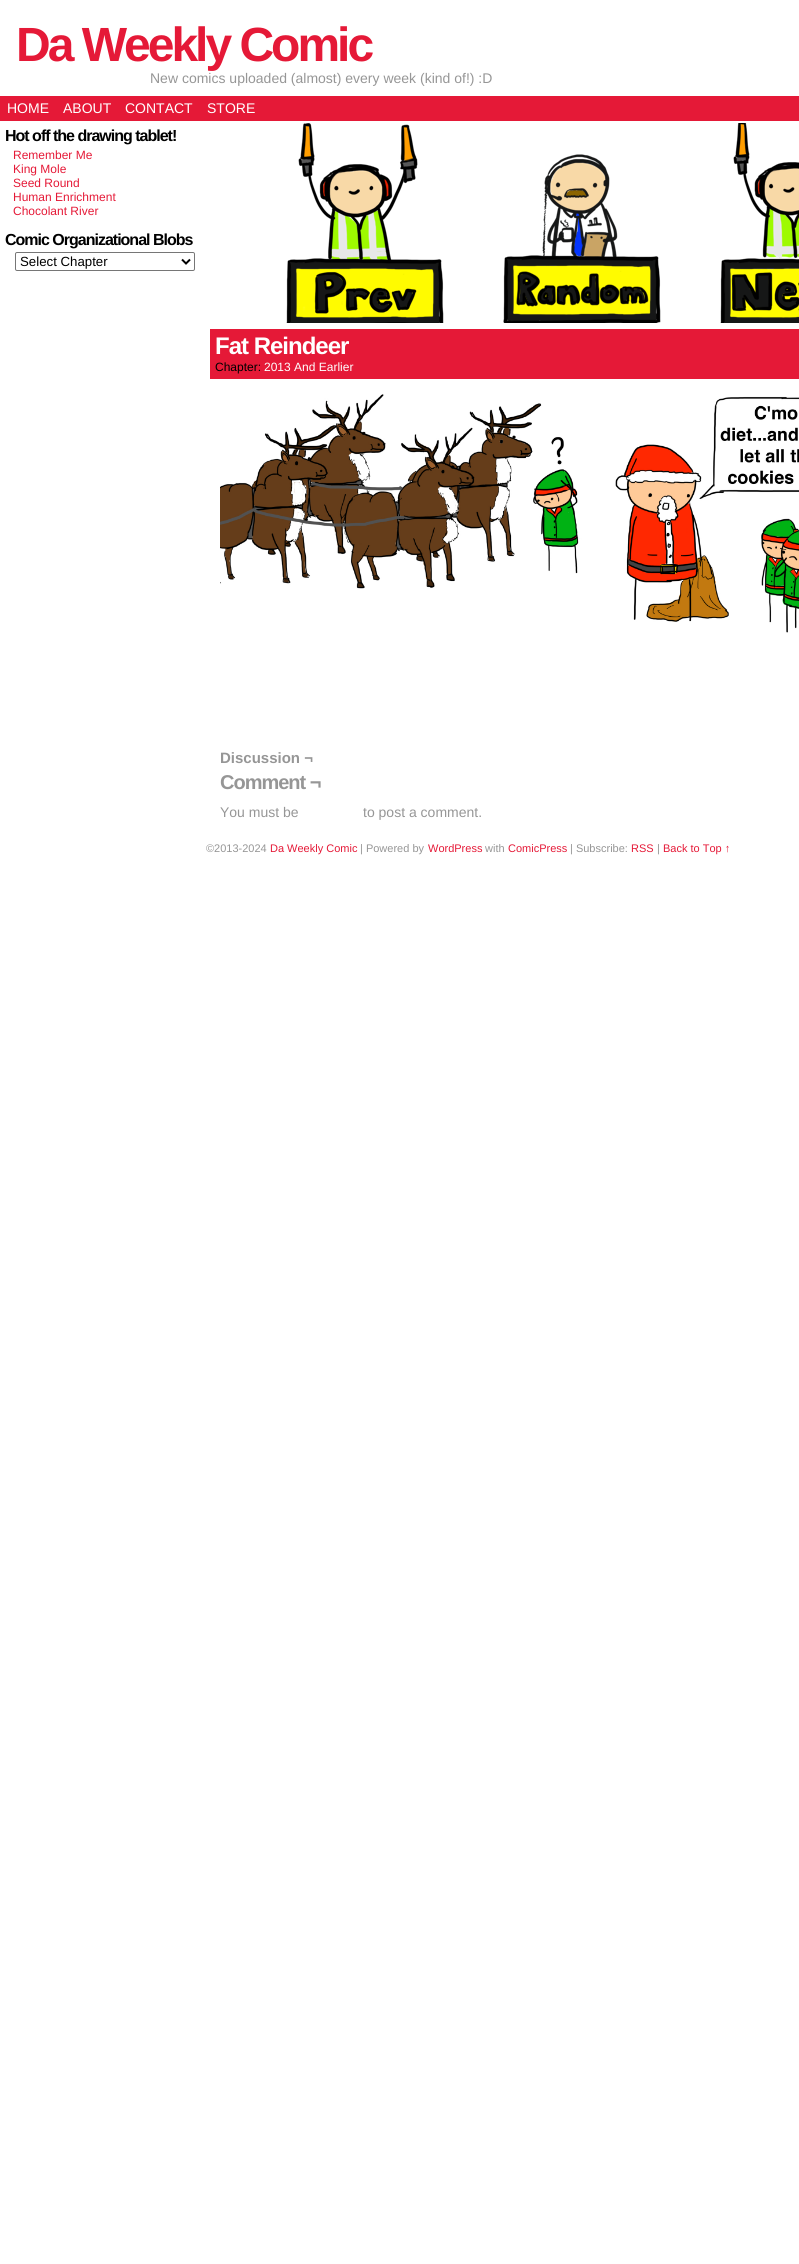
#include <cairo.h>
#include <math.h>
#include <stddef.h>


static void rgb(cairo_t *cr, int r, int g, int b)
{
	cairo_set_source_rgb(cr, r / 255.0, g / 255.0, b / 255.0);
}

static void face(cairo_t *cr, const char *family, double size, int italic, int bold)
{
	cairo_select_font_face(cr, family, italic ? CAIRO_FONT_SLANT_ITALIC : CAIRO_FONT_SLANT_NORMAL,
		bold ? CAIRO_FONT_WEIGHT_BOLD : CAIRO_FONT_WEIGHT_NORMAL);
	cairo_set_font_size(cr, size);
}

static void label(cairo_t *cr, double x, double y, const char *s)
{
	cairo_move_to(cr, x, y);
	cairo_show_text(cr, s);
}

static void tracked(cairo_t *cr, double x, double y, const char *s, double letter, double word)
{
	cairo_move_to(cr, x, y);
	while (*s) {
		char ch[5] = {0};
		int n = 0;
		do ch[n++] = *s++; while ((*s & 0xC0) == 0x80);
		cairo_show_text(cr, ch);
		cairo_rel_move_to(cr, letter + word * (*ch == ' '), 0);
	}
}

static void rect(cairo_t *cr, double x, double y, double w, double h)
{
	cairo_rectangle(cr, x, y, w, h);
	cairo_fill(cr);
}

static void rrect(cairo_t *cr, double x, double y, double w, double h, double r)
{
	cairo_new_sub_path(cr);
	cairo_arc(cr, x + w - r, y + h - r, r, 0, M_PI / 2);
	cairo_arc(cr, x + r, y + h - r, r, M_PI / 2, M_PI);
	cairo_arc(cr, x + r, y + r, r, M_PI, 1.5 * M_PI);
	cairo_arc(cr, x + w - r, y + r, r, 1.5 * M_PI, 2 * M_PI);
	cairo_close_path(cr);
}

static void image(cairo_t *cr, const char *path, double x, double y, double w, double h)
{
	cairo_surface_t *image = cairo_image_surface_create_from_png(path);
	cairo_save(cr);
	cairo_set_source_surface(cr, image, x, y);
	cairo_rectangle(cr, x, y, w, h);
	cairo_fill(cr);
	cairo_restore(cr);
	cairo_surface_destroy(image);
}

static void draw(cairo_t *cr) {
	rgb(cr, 255, 255, 255);
	cairo_paint(cr);
	face(cr, "Liberation Sans", 48, 0, 1);
	rgb(cr, 229, 25, 55);
	tracked(cr, 16, 61, "Da Weekly Comic", -3, 0);
	face(cr, "Liberation Sans", 14, 0, 0);
	rgb(cr, 150, 150, 150);
	label(cr, 150, 83, "New comics uploaded (almost) every week (kind of!) :D");
	rgb(cr, 229, 25, 55);
	rect(cr, 0, 96, 799, 25);
	rgb(cr, 255, 255, 255);
	label(cr, 7, 113, "HOME");
	label(cr, 63, 113, "ABOUT");
	label(cr, 125, 113, "CONTACT");
	label(cr, 207, 113, "STORE");
	face(cr, "Liberation Sans", 16, 0, 1);
	rgb(cr, 0, 0, 0);
	tracked(cr, 5, 141, "Hot off the drawing tablet!", -1, 0);
	face(cr, "Liberation Sans", 12, 0, 0);
	rgb(cr, 229, 25, 55);
	label(cr, 13, 159, "Remember Me");
	label(cr, 13, 173, "King Mole");
	label(cr, 13, 187, "Seed Round");
	label(cr, 13, 201, "Human Enrichment");
	label(cr, 13, 215, "Chocolant River");
	face(cr, "Liberation Sans", 16, 0, 1);
	rgb(cr, 0, 0, 0);
	tracked(cr, 5, 245, "Comic Organizational Blobs", -1, 0);
	rrect(cr, 15.5, 252.5, 179, 18, 1.5);
	rgb(cr, 118, 118, 118);
	cairo_set_line_width(cr, 1);
	cairo_stroke(cr);
	cairo_new_path(cr);
	cairo_move_to(cr, 182, 259.5);
	cairo_line_to(cr, 186, 263.5);
	cairo_line_to(cr, 190, 259.5);
	rgb(cr, 0, 0, 0);
	cairo_set_line_width(cr, 2);
	cairo_stroke(cr);
	face(cr, "Liberation Sans", 13.25, 0, 0);
	label(cr, 20, 266, "Select Chapter");
	image(cr, "image0.png", 286, 123, 158, 200);
	image(cr, "image1.png", 503, 154, 158, 169);
	image(cr, "image2.png", 720, 123, 79, 200);
	rgb(cr, 229, 25, 55);
	rect(cr, 210, 329, 589, 50);
	face(cr, "Liberation Sans", 24, 0, 1);
	rgb(cr, 255, 255, 255);
	tracked(cr, 215, 354, "Fat Reindeer", -1, 0);
	face(cr, "Liberation Sans", 12, 0, 0);
	rgb(cr, 0, 0, 0);
	label(cr, 215, 371, "Chapter:");
	rgb(cr, 255, 255, 255);
	label(cr, 264, 371, "2013 And Earlier");
	image(cr, "image3.png", 220, 394, 579, 239);
	face(cr, "Liberation Sans", 15, 0, 1);
	rgb(cr, 150, 150, 150);
	label(cr, 220, 763, "Discussion ¬");
	face(cr, "Liberation Sans", 20, 0, 1);
	tracked(cr, 220, 789, "Comment ¬", -1, 0);
	face(cr, "Liberation Sans", 14, 0, 0);
	label(cr, 220, 817, "You must be");
	label(cr, 363, 817, "to post a comment.");
	face(cr, "Liberation Sans", 11, 0, 0);
	label(cr, 206, 852, "©2013-2024");
	rgb(cr, 229, 25, 55);
	label(cr, 270, 852, "Da Weekly Comic");
	rgb(cr, 150, 150, 150);
	label(cr, 360, 852, "| Powered by");
	rgb(cr, 229, 25, 55);
	label(cr, 428, 852, "WordPress");
	rgb(cr, 150, 150, 150);
	label(cr, 485, 852, "with");
	rgb(cr, 229, 25, 55);
	label(cr, 508, 852, "ComicPress");
	rgb(cr, 150, 150, 150);
	label(cr, 570, 852, "| Subscribe:");
	rgb(cr, 229, 25, 55);
	label(cr, 631, 852, "RSS");
	rgb(cr, 150, 150, 150);
	label(cr, 657, 852, "|");
	rgb(cr, 229, 25, 55);
	label(cr, 663, 852, "Back to Top ↑");
}

int main(void) {
	cairo_surface_t *surface = cairo_image_surface_create(CAIRO_FORMAT_RGB24, 799, 2264);
	cairo_t *cr = cairo_create(surface);
	cairo_font_options_t *options = cairo_font_options_create();
	cairo_font_options_set_hint_metrics(options, CAIRO_HINT_METRICS_OFF);
	cairo_font_options_set_hint_style(options, CAIRO_HINT_STYLE_NONE);
	cairo_set_font_options(cr, options);
	cairo_set_miter_limit(cr, 4);
	draw(cr);
	cairo_surface_write_to_png(surface, "render.png");
	cairo_font_options_destroy(options);
	cairo_destroy(cr);
	cairo_surface_destroy(surface);
	return 0;
}
